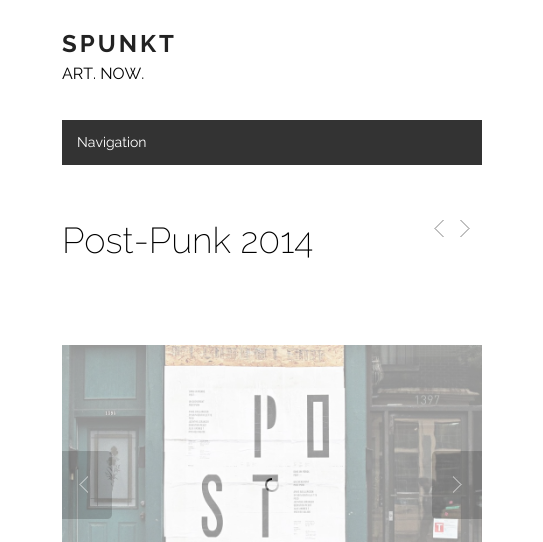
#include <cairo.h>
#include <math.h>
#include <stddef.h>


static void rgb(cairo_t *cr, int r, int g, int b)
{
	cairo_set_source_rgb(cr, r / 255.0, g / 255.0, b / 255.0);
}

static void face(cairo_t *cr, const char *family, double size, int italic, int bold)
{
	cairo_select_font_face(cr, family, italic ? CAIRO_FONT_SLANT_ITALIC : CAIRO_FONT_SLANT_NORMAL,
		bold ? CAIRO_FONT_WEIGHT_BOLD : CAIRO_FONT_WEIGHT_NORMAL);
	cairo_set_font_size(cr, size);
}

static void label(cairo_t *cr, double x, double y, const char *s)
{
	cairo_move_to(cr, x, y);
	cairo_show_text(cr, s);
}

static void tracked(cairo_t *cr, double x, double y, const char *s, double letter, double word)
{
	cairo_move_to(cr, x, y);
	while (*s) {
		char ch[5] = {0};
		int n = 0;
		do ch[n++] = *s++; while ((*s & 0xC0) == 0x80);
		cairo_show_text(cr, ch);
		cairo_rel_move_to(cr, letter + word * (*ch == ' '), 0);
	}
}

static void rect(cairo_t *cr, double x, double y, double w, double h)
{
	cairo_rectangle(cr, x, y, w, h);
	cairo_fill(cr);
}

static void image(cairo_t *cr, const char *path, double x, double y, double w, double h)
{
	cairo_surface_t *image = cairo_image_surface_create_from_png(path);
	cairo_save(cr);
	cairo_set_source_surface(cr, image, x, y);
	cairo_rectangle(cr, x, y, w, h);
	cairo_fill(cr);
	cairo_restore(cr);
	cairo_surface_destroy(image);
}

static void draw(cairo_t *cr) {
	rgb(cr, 255, 255, 255);
	cairo_paint(cr);
	face(cr, "Raleway", 24, 0, 1);
	rgb(cr, 34, 34, 34);
	tracked(cr, 62, 52, "SPUNKT", 3, 0);
	face(cr, "Raleway", 16, 0, 0);
	rgb(cr, 0, 0, 0);
	label(cr, 62, 79, "ART. NOW.");
	rgb(cr, 51, 51, 51);
	rect(cr, 62, 120, 420, 45);
	face(cr, "Raleway", 14, 0, 0);
	rgb(cr, 255, 255, 255);
	label(cr, 77, 147, "Navigation");
	face(cr, "Raleway ExtraLight", 36, 0, 0);
	rgb(cr, 0, 0, 0);
	label(cr, 62, 253, "Post-Punk 2014");
	image(cr, "image0.png", 434, 220, 10, 17);
	image(cr, "image1.png", 460, 220, 10, 17);
	image(cr, "image2.png", 265, 478, 14, 14);
	image(cr, "image3.png", 62, 345, 420, 197);
	cairo_set_source_rgba(cr, 0, 0, 0, 0.17);
	cairo_new_path(cr);
	cairo_move_to(cr, 62, 451);
	cairo_line_to(cr, 107, 451);
	cairo_curve_to(cr, 110, 451, 112, 453, 112, 456);
	cairo_line_to(cr, 112, 514);
	cairo_curve_to(cr, 112, 517, 110, 519, 107, 519);
	cairo_line_to(cr, 62, 519);
	cairo_close_path(cr);
	cairo_fill(cr);
	image(cr, "image4.png", 79, 476, 9, 17);
	cairo_new_path(cr);
	cairo_move_to(cr, 437, 451);
	cairo_line_to(cr, 482, 451);
	cairo_line_to(cr, 482, 519);
	cairo_line_to(cr, 437, 519);
	cairo_curve_to(cr, 434, 519, 432, 517, 432, 514);
	cairo_line_to(cr, 432, 456);
	cairo_curve_to(cr, 432, 453, 434, 451, 437, 451);
	cairo_close_path(cr);
	cairo_fill(cr);
	image(cr, "image5.png", 453, 476, 9, 17);
}

int main(void) {
	cairo_surface_t *surface = cairo_image_surface_create(CAIRO_FORMAT_RGB24, 543, 542);
	cairo_t *cr = cairo_create(surface);
	cairo_font_options_t *options = cairo_font_options_create();
	cairo_font_options_set_hint_metrics(options, CAIRO_HINT_METRICS_OFF);
	cairo_font_options_set_hint_style(options, CAIRO_HINT_STYLE_NONE);
	cairo_set_font_options(cr, options);
	cairo_set_miter_limit(cr, 4);
	draw(cr);
	cairo_surface_write_to_png(surface, "render.png");
	cairo_font_options_destroy(options);
	cairo_destroy(cr);
	cairo_surface_destroy(surface);
	return 0;
}
